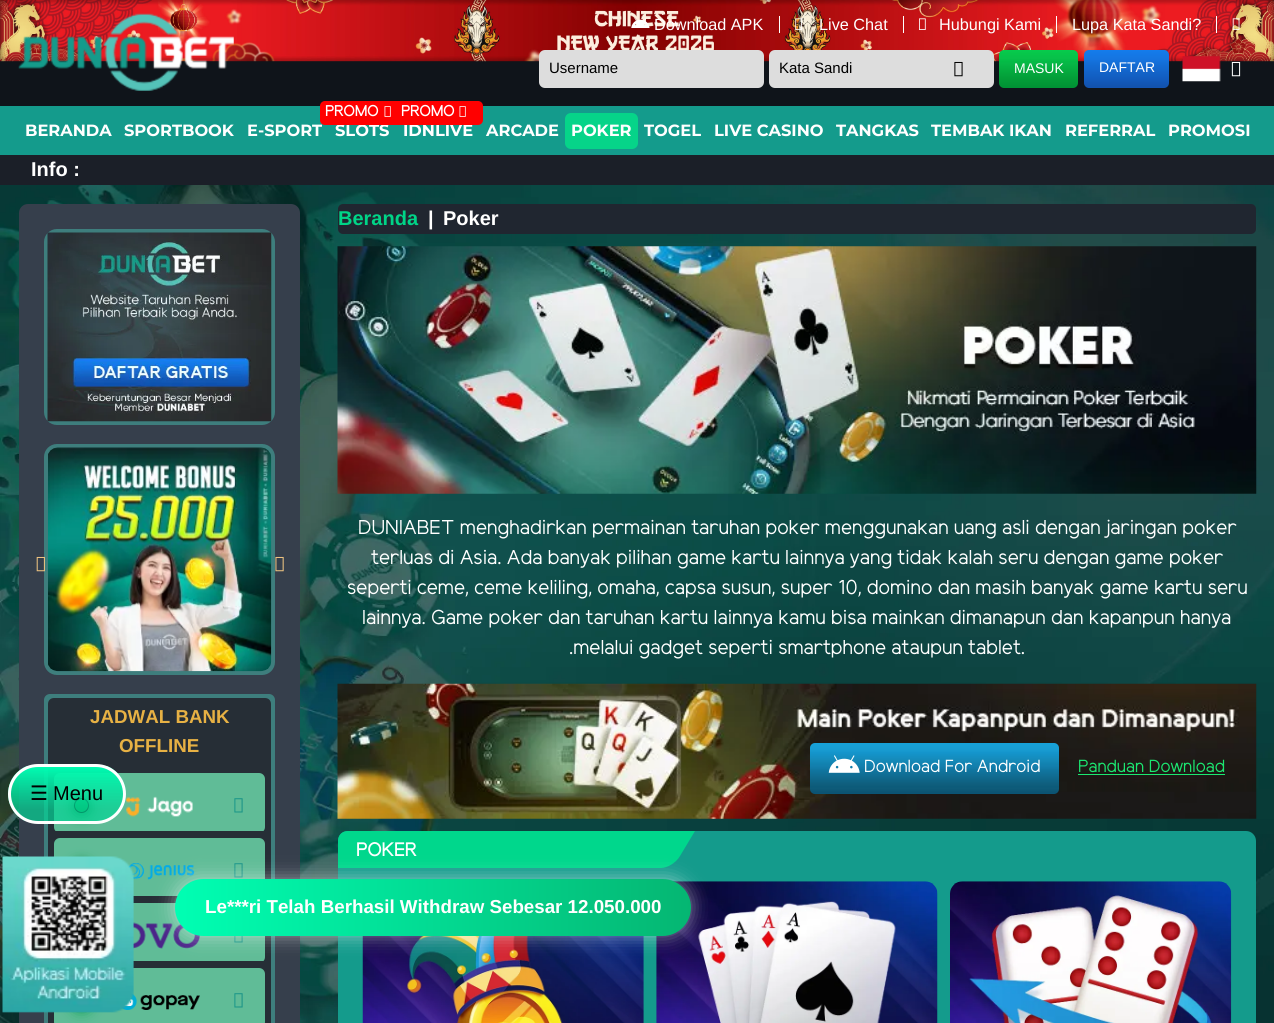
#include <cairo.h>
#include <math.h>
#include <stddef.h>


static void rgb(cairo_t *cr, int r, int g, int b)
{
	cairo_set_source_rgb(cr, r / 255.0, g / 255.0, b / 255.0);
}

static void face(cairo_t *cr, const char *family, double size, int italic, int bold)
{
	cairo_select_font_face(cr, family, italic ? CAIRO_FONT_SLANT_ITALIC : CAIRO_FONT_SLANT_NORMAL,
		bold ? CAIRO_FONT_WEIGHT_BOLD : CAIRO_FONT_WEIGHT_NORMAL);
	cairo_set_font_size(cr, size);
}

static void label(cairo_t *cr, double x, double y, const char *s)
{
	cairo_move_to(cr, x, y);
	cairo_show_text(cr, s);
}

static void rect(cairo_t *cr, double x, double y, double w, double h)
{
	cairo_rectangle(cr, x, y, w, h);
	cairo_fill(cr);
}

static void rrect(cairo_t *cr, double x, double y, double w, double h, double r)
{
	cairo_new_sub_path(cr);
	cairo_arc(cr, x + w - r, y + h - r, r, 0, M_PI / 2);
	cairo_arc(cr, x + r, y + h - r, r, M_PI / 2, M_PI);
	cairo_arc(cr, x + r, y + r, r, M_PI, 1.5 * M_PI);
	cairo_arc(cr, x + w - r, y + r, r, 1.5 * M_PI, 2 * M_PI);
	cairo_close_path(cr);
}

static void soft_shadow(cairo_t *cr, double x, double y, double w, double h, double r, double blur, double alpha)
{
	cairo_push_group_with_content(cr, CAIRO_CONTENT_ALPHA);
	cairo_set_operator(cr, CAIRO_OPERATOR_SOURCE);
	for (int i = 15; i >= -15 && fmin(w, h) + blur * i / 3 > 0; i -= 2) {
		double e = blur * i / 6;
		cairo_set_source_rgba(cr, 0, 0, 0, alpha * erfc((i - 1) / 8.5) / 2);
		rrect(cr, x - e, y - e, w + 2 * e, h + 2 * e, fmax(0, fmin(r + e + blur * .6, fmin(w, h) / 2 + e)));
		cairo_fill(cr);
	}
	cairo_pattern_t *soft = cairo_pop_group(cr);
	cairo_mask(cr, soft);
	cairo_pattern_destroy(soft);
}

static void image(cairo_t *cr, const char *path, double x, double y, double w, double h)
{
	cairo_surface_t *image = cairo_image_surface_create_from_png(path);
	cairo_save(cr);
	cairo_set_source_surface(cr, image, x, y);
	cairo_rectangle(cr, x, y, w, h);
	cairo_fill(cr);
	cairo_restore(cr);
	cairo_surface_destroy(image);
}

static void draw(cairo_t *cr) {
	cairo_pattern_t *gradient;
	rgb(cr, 255, 255, 255);
	cairo_paint(cr);
	rgb(cr, 15, 20, 26);
	rect(cr, 0, 61, 1274, 45);
	image(cr, "image0.png", 0, 0, 1274, 62);
	image(cr, "image1.png", 18, 13, 216, 78);
	image(cr, "image2.png", 631, 17, 19, 11);
	face(cr, "Liberation Sans", 16.25, 0, 0);
	rgb(cr, 255, 255, 255);
	label(cr, 654, 30, "Download APK");
	rect(cr, 779, 16, 1, 17);
	image(cr, "image3.png", 795, 18, 7, 12);
	label(cr, 819, 30, "Live Chat");
	rect(cr, 903, 16, 1, 17);
	image(cr, "image4.png", 919, 18, 7, 12);
	label(cr, 939, 30, "Hubungi Kami");
	rect(cr, 1056, 16, 1, 17);
	label(cr, 1072, 30, "Lupa Kata Sandi?");
	rect(cr, 1216, 16, 1, 17);
	image(cr, "image5.png", 1232, 18, 8, 12);
	rgb(cr, 221, 221, 221);
	rrect(cr, 539, 50, 225, 38, 6);
	cairo_fill(cr);
	face(cr, "Liberation Sans", 15, 0, 0);
	rgb(cr, 0, 0, 0);
	label(cr, 549, 73, "Username");
	rgb(cr, 221, 221, 221);
	rrect(cr, 769, 50, 225, 38, 6);
	cairo_fill(cr);
	rgb(cr, 0, 0, 0);
	label(cr, 779, 73, "Kata Sandi");
	image(cr, "image6.png", 954, 61, 9, 16);
	gradient = cairo_pattern_create_linear(1038, 50, 1038, 88);
	cairo_pattern_add_color_stop_rgba(gradient, 0, 0.031, 0.792, 0.302, 1);
	cairo_pattern_add_color_stop_rgba(gradient, 0.09, 0.024, 0.78, 0.29, 1);
	cairo_pattern_add_color_stop_rgba(gradient, 0.22, 0.031, 0.757, 0.29, 1);
	cairo_pattern_add_color_stop_rgba(gradient, 0.3, 0.016, 0.733, 0.271, 1);
	cairo_pattern_add_color_stop_rgba(gradient, 0.35, 0.024, 0.722, 0.275, 1);
	cairo_pattern_add_color_stop_rgba(gradient, 0.74, 0.012, 0.62, 0.22, 1);
	cairo_pattern_add_color_stop_rgba(gradient, 1, 0, 0.569, 0.204, 1);
	cairo_set_source(cr, gradient);
	cairo_pattern_destroy(gradient);
	rrect(cr, 999, 50, 79, 38, 5);
	cairo_fill(cr);
	face(cr, "Liberation Sans", 14, 0, 0);
	rgb(cr, 255, 255, 255);
	label(cr, 1014, 73, "MASUK");
	gradient = cairo_pattern_create_linear(1126, 50, 1126, 88);
	cairo_pattern_add_color_stop_rgba(gradient, 0, 0.078, 0.486, 0.922, 1);
	cairo_pattern_add_color_stop_rgba(gradient, 0.25, 0.082, 0.455, 0.878, 1);
	cairo_pattern_add_color_stop_rgba(gradient, 0.35, 0.075, 0.431, 0.843, 1);
	cairo_pattern_add_color_stop_rgba(gradient, 0.8, 0.071, 0.353, 0.737, 1);
	cairo_pattern_add_color_stop_rgba(gradient, 0.95, 0.071, 0.325, 0.686, 1);
	cairo_pattern_add_color_stop_rgba(gradient, 1, 0.071, 0.325, 0.686, 1);
	cairo_set_source(cr, gradient);
	cairo_pattern_destroy(gradient);
	rrect(cr, 1084, 50, 85, 38, 5);
	cairo_fill(cr);
	rgb(cr, 255, 255, 255);
	label(cr, 1099, 72, "DAFTAR");
	image(cr, "image7.png", 1182, 56, 39, 26);
	image(cr, "image8.png", 1231, 61, 10, 16);
	rgb(cr, 20, 155, 140);
	rect(cr, 0, 106, 1274, 49);
	face(cr, "Montserrat", 16.25, 0, 1);
	rgb(cr, 255, 255, 255);
	label(cr, 25, 136, "BERANDA");
	label(cr, 124, 136, "SPORTBOOK");
	label(cr, 247, 136, "E-SPORT");
	label(cr, 335, 136, "SLOTS");
	label(cr, 403, 136, "IDNLIVE");
	rgb(cr, 255, 0, 0);
	rrect(cr, 320, 101, 86, 24, 5);
	cairo_fill(cr);
	face(cr, "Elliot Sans", 15, 0, 1);
	rgb(cr, 255, 255, 255);
	label(cr, 325, 116, "PROMO");
	image(cr, "image9.png", 384, 106, 7, 11);
	rgb(cr, 255, 0, 0);
	rrect(cr, 396, 101, 87, 24, 5);
	cairo_fill(cr);
	rgb(cr, 255, 255, 255);
	label(cr, 401, 116, "PROMO");
	image(cr, "image9.png", 459, 106, 7, 11);
	face(cr, "Montserrat", 16.25, 0, 1);
	label(cr, 486, 136, "ARCADE");
	rgb(cr, 6, 212, 137);
	rrect(cr, 565, 113, 73, 36, 6);
	cairo_fill(cr);
	rgb(cr, 255, 255, 255);
	label(cr, 571, 136, "POKER");
	label(cr, 644, 136, "TOGEL");
	label(cr, 714, 136, "LIVE CASINO");
	label(cr, 836, 136, "TANGKAS");
	label(cr, 931, 136, "TEMBAK IKAN");
	label(cr, 1065, 136, "REFERRAL");
	label(cr, 1168, 136, "PROMOSI");
	rgb(cr, 27, 31, 40);
	rect(cr, 0, 155, 1274, 30);
	face(cr, "Liberation Sans", 20, 0, 1);
	rgb(cr, 255, 255, 255);
	label(cr, 31, 176, "Info :");
	image(cr, "image10.png", 0, 185, 1274, 838);
	rgb(cr, 54, 63, 76);
	rrect(cr, 19, 204, 281, 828, 9);
	cairo_fill(cr);
	cairo_save(cr);
	rrect(cr, 44, 229, 231, 196, 13);
	cairo_clip(cr);
	rgb(cr, 62, 126, 125);
	rrect(cr, 41, 226, 237, 202, 13);
	cairo_fill(cr);
	cairo_restore(cr);
	image(cr, "image11.png", 47, 232, 225, 190);
	rgb(cr, 62, 126, 125);
	rrect(cr, 44, 444, 231, 231, 13);
	cairo_fill(cr);
	image(cr, "image12.png", 48, 447, 224, 225);
	image(cr, "image13.png", 36, 556, 9, 16);
	image(cr, "image14.png", 275, 556, 9, 16);
	rrect(cr, 44, 694, 231, 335, 6);
	cairo_fill(cr);
	rgb(cr, 38, 46, 54);
	cairo_new_path(cr);
	cairo_move_to(cr, 54, 698);
	cairo_line_to(cr, 265, 698);
	cairo_curve_to(cr, 268.5, 698, 271, 700.5, 271, 704);
	cairo_line_to(cr, 271, 766);
	cairo_line_to(cr, 48, 766);
	cairo_line_to(cr, 48, 704);
	cairo_curve_to(cr, 48, 700.5, 50.5, 698, 54, 698);
	cairo_close_path(cr);
	cairo_fill(cr);
	face(cr, "Liberation Sans", 18.75, 0, 1);
	rgb(cr, 231, 177, 68);
	label(cr, 90, 723, "JADWAL BANK");
	label(cr, 119, 752, "OFFLINE");
	rgb(cr, 38, 46, 54);
	rect(cr, 48, 766, 223, 257);
	cairo_save(cr);
	cairo_new_path(cr);
	cairo_move_to(cr, 59, 773);
	cairo_line_to(cr, 260, 773);
	cairo_curve_to(cr, 263, 773, 265, 775, 265, 778);
	cairo_line_to(cr, 265, 831);
	cairo_line_to(cr, 54, 831);
	cairo_line_to(cr, 54, 778);
	cairo_curve_to(cr, 54, 775, 56, 773, 59, 773);
	cairo_close_path(cr);
	cairo_clip(cr);
	rgb(cr, 96, 188, 151);
	rrect(cr, 54, 773, 211, 60, 6);
	cairo_fill(cr);
	cairo_restore(cr);
	rgb(cr, 0, 166, 81);
	soft_shadow(cr, 74, 800, 15, 15, 7.5, 7.5, 1);
	rgb(cr, 0, 0, 0);
	soft_shadow(cr, 73, 795, 17, 18, 8.5, 4.5, 0.2);
	rgb(cr, 0, 166, 81);
	cairo_arc(cr, 81.5, 805.5, 7, 0, 2 * M_PI);
	cairo_fill_preserve(cr);
	rgb(cr, 0, 0, 0);
	cairo_set_line_width(cr, 1);
	cairo_stroke(cr);
	image(cr, "image15.png", 126, 796, 67, 21);
	image(cr, "image16.png", 234, 798, 9, 15);
	cairo_save(cr);
	cairo_rectangle(cr, 54, 838, 211, 58);
	cairo_clip(cr);
	rgb(cr, 96, 188, 151);
	rrect(cr, 54, 838, 211, 60, 6);
	cairo_fill(cr);
	cairo_restore(cr);
	rgb(cr, 0, 166, 81);
	soft_shadow(cr, 74, 865, 15, 15, 7.5, 7.5, 1);
	rgb(cr, 0, 0, 0);
	soft_shadow(cr, 73, 860, 17, 18, 8.5, 4.5, 0.2);
	image(cr, "image17.png", 127, 863, 68, 17);
	image(cr, "image16.png", 234, 863, 9, 15);
	cairo_save(cr);
	cairo_rectangle(cr, 54, 903, 211, 58);
	cairo_clip(cr);
	rgb(cr, 96, 188, 151);
	rrect(cr, 54, 903, 211, 60, 6);
	cairo_fill(cr);
	cairo_restore(cr);
	image(cr, "image18.png", 133, 922, 67, 27);
	image(cr, "image19.png", 234, 936, 9, 7);
	rgb(cr, 96, 188, 151);
	rrect(cr, 54, 968, 211, 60, 6);
	cairo_fill(cr);
	rgb(cr, 0, 166, 81);
	soft_shadow(cr, 74, 995, 15, 15, 7.5, 7.5, 1);
	rgb(cr, 0, 0, 0);
	soft_shadow(cr, 73, 990, 17, 18, 8.5, 4.5, 0.2);
	image(cr, "image20.png", 121, 992, 79, 18);
	image(cr, "image16.png", 234, 993, 9, 15);
	rgb(cr, 32, 38, 48);
	rrect(cr, 338, 204, 918, 30, 5);
	cairo_fill(cr);
	face(cr, "Liberation Sans", 20, 0, 1);
	rgb(cr, 0, 212, 135);
	label(cr, 338, 225, "Beranda");
	rgb(cr, 255, 255, 255);
	label(cr, 428, 225, "|");
	label(cr, 443, 225, "Poker");
	image(cr, "image21.png", 337, 246, 920, 248);
	face(cr, "Elliot Sans", 20, 0, 0);
	label(cr, 358, 534, "DUNIABET menghadirkan permainan taruhan poker menggunakan uang asli dengan jaringan poker");
	label(cr, 371, 564, "terluas di Asia. Ada banyak pilihan game kartu lainnya yang tidak kalah seru dengan game poker");
	label(cr, 347, 594, "seperti ceme, ceme keliling, omaha, capsa susun, super 10, domino dan masih banyak game kartu seru");
	label(cr, 362, 624, "lainnya. Game poker dan taruhan kartu lainnya kamu bisa mainkan dimanapun dan kapanpun hanya");
	label(cr, 569, 654, ".melalui gadget seperti smartphone ataupun tablet.");
	image(cr, "image22.png", 337, 683, 920, 136);
	gradient = cairo_pattern_create_linear(934, 743, 934, 794);
	cairo_pattern_add_color_stop_rgba(gradient, 0, 0.09, 0.635, 0.851, 1);
	cairo_pattern_add_color_stop_rgba(gradient, 0.14, 0.094, 0.608, 0.82, 1);
	cairo_pattern_add_color_stop_rgba(gradient, 0.19, 0.078, 0.584, 0.8, 1);
	cairo_pattern_add_color_stop_rgba(gradient, 0.32, 0.082, 0.545, 0.733, 1);
	cairo_pattern_add_color_stop_rgba(gradient, 0.41, 0.071, 0.51, 0.69, 1);
	cairo_pattern_add_color_stop_rgba(gradient, 0.46, 0.075, 0.494, 0.675, 1);
	cairo_pattern_add_color_stop_rgba(gradient, 0.54, 0.063, 0.459, 0.624, 1);
	cairo_pattern_add_color_stop_rgba(gradient, 0.81, 0.059, 0.369, 0.49, 1);
	cairo_pattern_add_color_stop_rgba(gradient, 0.86, 0.047, 0.357, 0.475, 1);
	cairo_pattern_add_color_stop_rgba(gradient, 0.89, 0.055, 0.357, 0.475, 1);
	cairo_pattern_add_color_stop_rgba(gradient, 0.97, 0.047, 0.325, 0.451, 1);
	cairo_pattern_add_color_stop_rgba(gradient, 1, 0.043, 0.329, 0.455, 1);
	cairo_set_source(cr, gradient);
	cairo_pattern_destroy(gradient);
	rrect(cr, 810, 743, 249, 51, 5);
	cairo_fill(cr);
	image(cr, "image23.png", 828, 755, 32, 18);
	face(cr, "Elliot Sans", 17.5, 0, 0);
	rgb(cr, 255, 255, 255);
	label(cr, 864, 772, "Download For Android");
	rgb(cr, 27, 232, 113);
	label(cr, 1078, 772, "Panduan Download");
	rect(cr, 1078, 774, 147, 1);
	rgb(cr, 20, 155, 140);
	rrect(cr, 338, 831, 918, 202, 10);
	cairo_fill(cr);
	rgb(cr, 0, 215, 140);
	cairo_new_path(cr);
	cairo_move_to(cr, 348, 831);
	cairo_curve_to(cr, 342, 831, 338, 835, 338, 841);
	cairo_line_to(cr, 338, 868);
	cairo_line_to(cr, 661, 868);
	cairo_curve_to(cr, 667, 868, 676, 863, 680, 856);
	cairo_line_to(cr, 695, 831);
	cairo_close_path(cr);
	cairo_fill(cr);
	face(cr, "Elliot Sans", 18.75, 0, 1);
	rgb(cr, 255, 255, 255);
	label(cr, 356, 856, "POKER");
	image(cr, "image24.png", 362, 936, 282, 87);
	image(cr, "image25.png", 656, 881, 282, 142);
	image(cr, "image26.png", 950, 881, 282, 142);
	cairo_save(cr);
	rrect(cr, 8, 764, 118, 60, 30);
	cairo_clip(cr);
	gradient = cairo_pattern_create_linear(67, 766, 67, 821);
	cairo_pattern_add_color_stop_rgba(gradient, 0, 0, 1, 0.702, 1);
	cairo_pattern_add_color_stop_rgba(gradient, 0.8, 0.016, 0.827, 0.584, 0.71);
	cairo_set_source(cr, gradient);
	cairo_pattern_destroy(gradient);
	rect(cr, 8, 766, 118, 55);
	cairo_restore(cr);
	rrect(cr, 9.5, 765.5, 115, 57, 28.5);
	cairo_set_line_width(cr, 3);
	cairo_stroke(cr);
	face(cr, "DejaVu Sans", 20, 0, 0);
	rgb(cr, 0, 0, 0);
	label(cr, 30, 800, "☰");
	face(cr, "Liberation Sans", 20, 0, 0);
	label(cr, 53, 800, "Menu");
	rgb(cr, 255, 255, 255);
	soft_shadow(cr, 175, 879, 516, 57, 28.5, 9.5, 0.5);
	gradient = cairo_pattern_create_linear(175, 908, 691, 908);
	cairo_pattern_add_color_stop_rgba(gradient, 0, 0, 1, 0.702, 1);
	cairo_pattern_add_color_stop_rgba(gradient, 1, 0.02, 0.714, 0.447, 1);
	cairo_set_source(cr, gradient);
	cairo_pattern_destroy(gradient);
	rrect(cr, 175, 879, 516, 57, 28.5);
	cairo_fill(cr);
	face(cr, "Liberation Sans", 18.75, 0, 1);
	rgb(cr, 255, 255, 255);
	label(cr, 205, 913, "Le***ri Telah Berhasil Withdraw Sebesar 12.050.000");
	image(cr, "image27.png", 2, 856, 132, 157);
}

int main(void) {
	cairo_surface_t *surface = cairo_image_surface_create(CAIRO_FORMAT_RGB24, 1274, 1023);
	cairo_t *cr = cairo_create(surface);
	cairo_font_options_t *options = cairo_font_options_create();
	cairo_font_options_set_hint_metrics(options, CAIRO_HINT_METRICS_OFF);
	cairo_font_options_set_hint_style(options, CAIRO_HINT_STYLE_NONE);
	cairo_set_font_options(cr, options);
	cairo_set_miter_limit(cr, 4);
	draw(cr);
	cairo_surface_write_to_png(surface, "render.png");
	cairo_font_options_destroy(options);
	cairo_destroy(cr);
	cairo_surface_destroy(surface);
	return 0;
}
